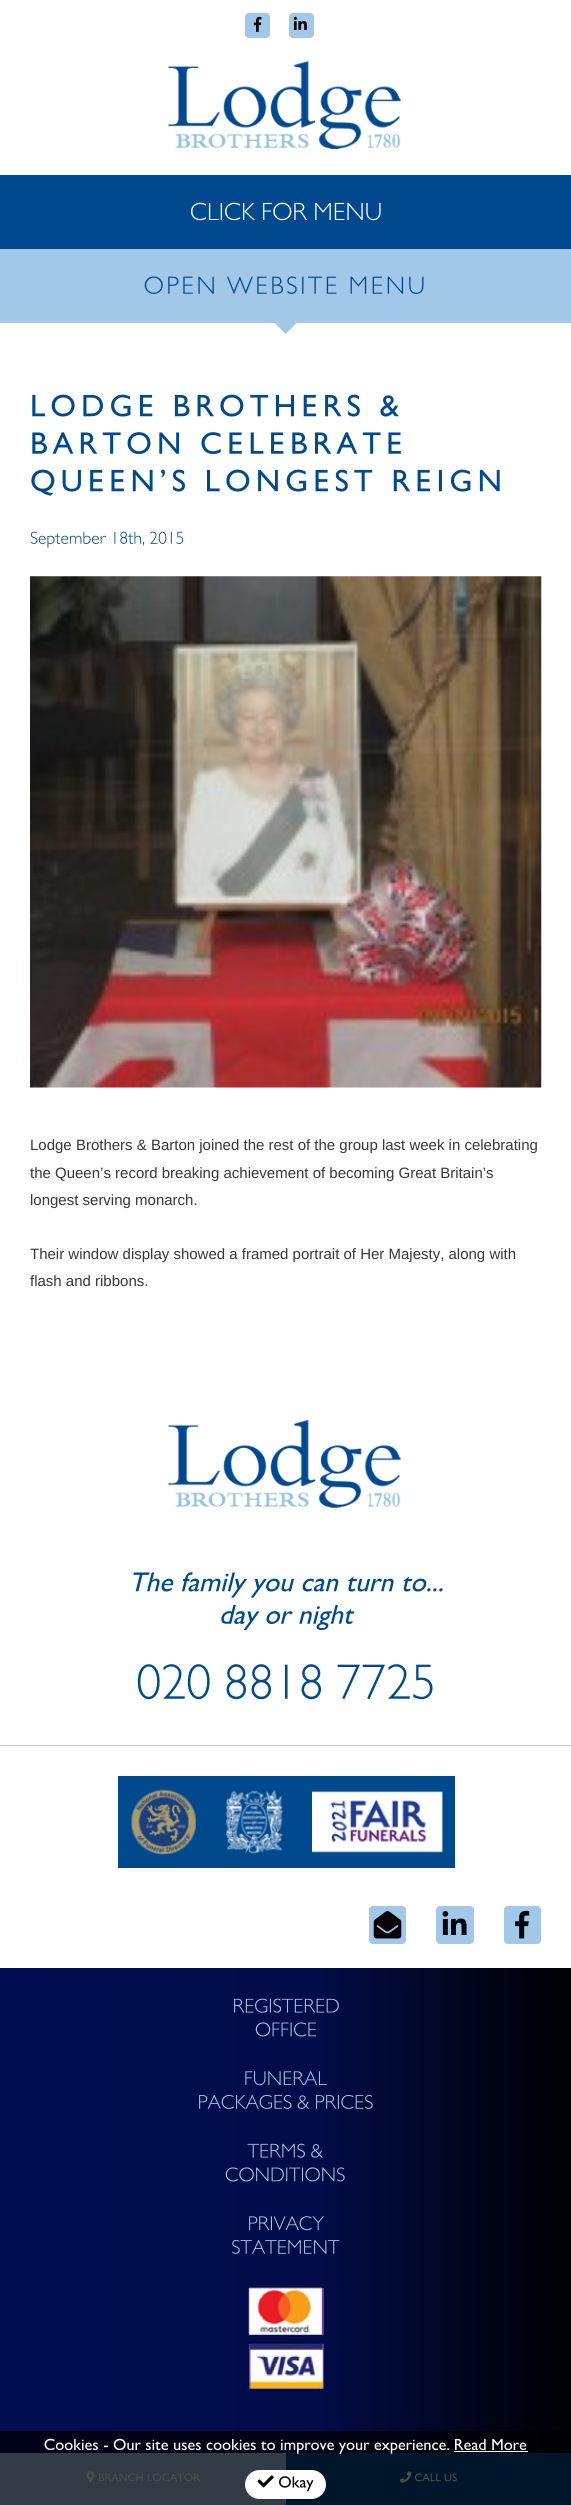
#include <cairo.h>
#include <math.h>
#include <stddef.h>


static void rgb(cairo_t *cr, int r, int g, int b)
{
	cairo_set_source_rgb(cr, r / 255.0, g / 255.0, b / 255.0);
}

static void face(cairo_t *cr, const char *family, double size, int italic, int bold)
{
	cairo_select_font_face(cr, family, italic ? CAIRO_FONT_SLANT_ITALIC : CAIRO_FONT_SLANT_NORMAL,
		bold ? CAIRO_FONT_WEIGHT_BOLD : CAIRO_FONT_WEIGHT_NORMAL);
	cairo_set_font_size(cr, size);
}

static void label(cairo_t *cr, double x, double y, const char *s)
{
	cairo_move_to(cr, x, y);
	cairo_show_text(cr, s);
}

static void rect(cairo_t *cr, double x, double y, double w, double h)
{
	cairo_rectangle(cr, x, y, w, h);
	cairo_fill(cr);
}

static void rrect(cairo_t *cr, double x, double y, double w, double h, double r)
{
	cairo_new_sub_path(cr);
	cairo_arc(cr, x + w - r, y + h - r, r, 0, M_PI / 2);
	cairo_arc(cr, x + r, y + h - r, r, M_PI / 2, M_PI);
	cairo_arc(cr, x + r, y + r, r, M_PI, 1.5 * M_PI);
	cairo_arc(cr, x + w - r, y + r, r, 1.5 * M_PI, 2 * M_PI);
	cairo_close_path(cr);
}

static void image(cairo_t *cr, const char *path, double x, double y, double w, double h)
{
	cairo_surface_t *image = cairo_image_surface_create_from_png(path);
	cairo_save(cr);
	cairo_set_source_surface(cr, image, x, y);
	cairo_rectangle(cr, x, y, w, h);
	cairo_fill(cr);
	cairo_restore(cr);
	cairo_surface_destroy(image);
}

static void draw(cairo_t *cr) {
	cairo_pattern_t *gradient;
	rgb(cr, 255, 255, 255);
	cairo_paint(cr);
	rgb(cr, 161, 199, 233);
	rrect(cr, 245, 13, 25, 25, 4);
	cairo_fill(cr);
	image(cr, "image0.png", 253, 16, 9, 16);
	rrect(cr, 289, 13, 25, 25, 4);
	cairo_fill(cr);
	image(cr, "image1.png", 293, 16, 14, 14);
	image(cr, "image2.png", 168, 60, 233, 89);
	rgb(cr, 0, 73, 143);
	rect(cr, 0, 175, 571, 74);
	image(cr, "image3.png", 190, 202, 191, 19);
	rgb(cr, 161, 199, 233);
	rect(cr, 0, 249, 571, 74);
	image(cr, "image4.png", 144, 276, 280, 18);
	cairo_new_path(cr);
	cairo_move_to(cr, 285.5, 298.5);
	cairo_line_to(cr, 303.5, 316);
	cairo_line_to(cr, 285.5, 334);
	cairo_line_to(cr, 268, 316);
	cairo_close_path(cr);
	cairo_fill(cr);
	image(cr, "image5.png", 32, 394, 367, 23);
	image(cr, "image6.png", 32, 432, 369, 22);
	image(cr, "image7.png", 31, 469, 469, 27);
	image(cr, "image8.png", 30, 531, 154, 17);
	image(cr, "image9.png", 30, 576, 512, 512);
	face(cr, "Liberation Sans", 15, 0, 0);
	rgb(cr, 56, 55, 55);
	label(cr, 30, 1150, "Lodge Brothers & Barton joined the rest of the group last week in celebrating");
	label(cr, 30, 1178, "the Queen’s record breaking achievement of becoming Great Britain’s");
	label(cr, 30, 1205, "longest serving monarch.");
	label(cr, 30, 1259, "Their window display showed a framed portrait of Her Majesty, along with");
	label(cr, 30, 1286, "flash and ribbons.");
	rgb(cr, 204, 204, 204);
	rect(cr, 0, 1745, 571, 1);
	image(cr, "image10.png", 168, 1419, 233, 89);
	image(cr, "image11.png", 133, 1572, 310, 26);
	image(cr, "image12.png", 221, 1605, 134, 26);
	image(cr, "image13.png", 137, 1664, 296, 36);
	rgb(cr, 0, 73, 143);
	rect(cr, 118, 1776, 337, 92);
	image(cr, "image14.png", 131, 1789, 312, 66);
	rgb(cr, 161, 199, 233);
	rrect(cr, 369, 1906, 37, 38, 4);
	cairo_fill(cr);
	image(cr, "image15.png", 373, 1911, 29, 28);
	rrect(cr, 436, 1906, 38, 38, 4);
	cairo_fill(cr);
	image(cr, "image16.png", 442, 1911, 25, 24);
	rrect(cr, 504, 1906, 37, 38, 4);
	cairo_fill(cr);
	image(cr, "image17.png", 515, 1910, 15, 29);
	gradient = cairo_pattern_create_linear(0, 2229, 571, 2229);
	cairo_pattern_add_color_stop_rgba(gradient, 0, 0.008, 0, 0.141, 1);
	cairo_pattern_add_color_stop_rgba(gradient, 0, 0.008, 0.055, 0.322, 1);
	cairo_pattern_add_color_stop_rgba(gradient, 0.55, 0.008, 0.047, 0.282, 1);
	cairo_pattern_add_color_stop_rgba(gradient, 1, 0, 0.004, 0.008, 1);
	cairo_set_source(cr, gradient);
	cairo_pattern_destroy(gradient);
	rect(cr, 0, 1968, 571, 463);
	gradient = cairo_pattern_create_linear(0, 2229, 571, 2229);
	cairo_pattern_add_color_stop_rgba(gradient, 0, 0.004, 0, 0.043, 1);
	cairo_pattern_add_color_stop_rgba(gradient, 0, 0.004, 0.016, 0.098, 1);
	cairo_pattern_add_color_stop_rgba(gradient, 0.55, 0.004, 0.016, 0.086, 1);
	cairo_pattern_add_color_stop_rgba(gradient, 1, 0, 0, 0.004, 1);
	cairo_set_source(cr, gradient);
	cairo_pattern_destroy(gradient);
	rect(cr, 0, 2431, 571, 22);
	image(cr, "image18.png", 234, 1998, 105, 15);
	image(cr, "image19.png", 255, 2022, 61, 15);
	image(cr, "image20.png", 245, 2071, 82, 15);
	image(cr, "image21.png", 199, 2094, 174, 15);
	image(cr, "image22.png", 247, 2143, 76, 15);
	image(cr, "image23.png", 225, 2167, 120, 15);
	image(cr, "image24.png", 249, 2216, 75, 15);
	image(cr, "image25.png", 232, 2239, 108, 15);
	rgb(cr, 102, 51, 153);
	rect(cr, 249, 2288, 75, 47);
	image(cr, "image26.png", 248, 2287, 75, 48);
	rect(cr, 249, 2344, 75, 45);
	image(cr, "image27.png", 249, 2343, 75, 46);
	image(cr, "image28.png", 44, 2438, 54, 13);
	rgb(cr, 50, 59, 70);
	rect(cr, 0, 2453, 286, 52);
	rgb(cr, 0, 22, 43);
	rect(cr, 286, 2453, 285, 52);
	image(cr, "image29.png", 103, 2438, 347, 16);
	image(cr, "image30.png", 455, 2438, 72, 13);
	rgb(cr, 255, 255, 255);
	rect(cr, 454, 2451, 74, 1);
	rrect(cr, 245, 2470, 81, 29, 14.5);
	cairo_fill(cr);
	image(cr, "image31.png", 257, 2475, 17, 13);
	image(cr, "image32.png", 279, 2476, 35, 16);
	image(cr, "image33.png", 86, 2471, 9, 12);
	image(cr, "image34.png", 99, 2473, 101, 9);
	image(cr, "image35.png", 400, 2471, 12, 12);
	image(cr, "image36.png", 414, 2473, 43, 9);
}

int main(void) {
	cairo_surface_t *surface = cairo_image_surface_create(CAIRO_FORMAT_RGB24, 571, 2505);
	cairo_t *cr = cairo_create(surface);
	cairo_font_options_t *options = cairo_font_options_create();
	cairo_font_options_set_hint_metrics(options, CAIRO_HINT_METRICS_OFF);
	cairo_font_options_set_hint_style(options, CAIRO_HINT_STYLE_NONE);
	cairo_set_font_options(cr, options);
	cairo_set_miter_limit(cr, 4);
	draw(cr);
	cairo_surface_write_to_png(surface, "render.png");
	cairo_font_options_destroy(options);
	cairo_destroy(cr);
	cairo_surface_destroy(surface);
	return 0;
}
